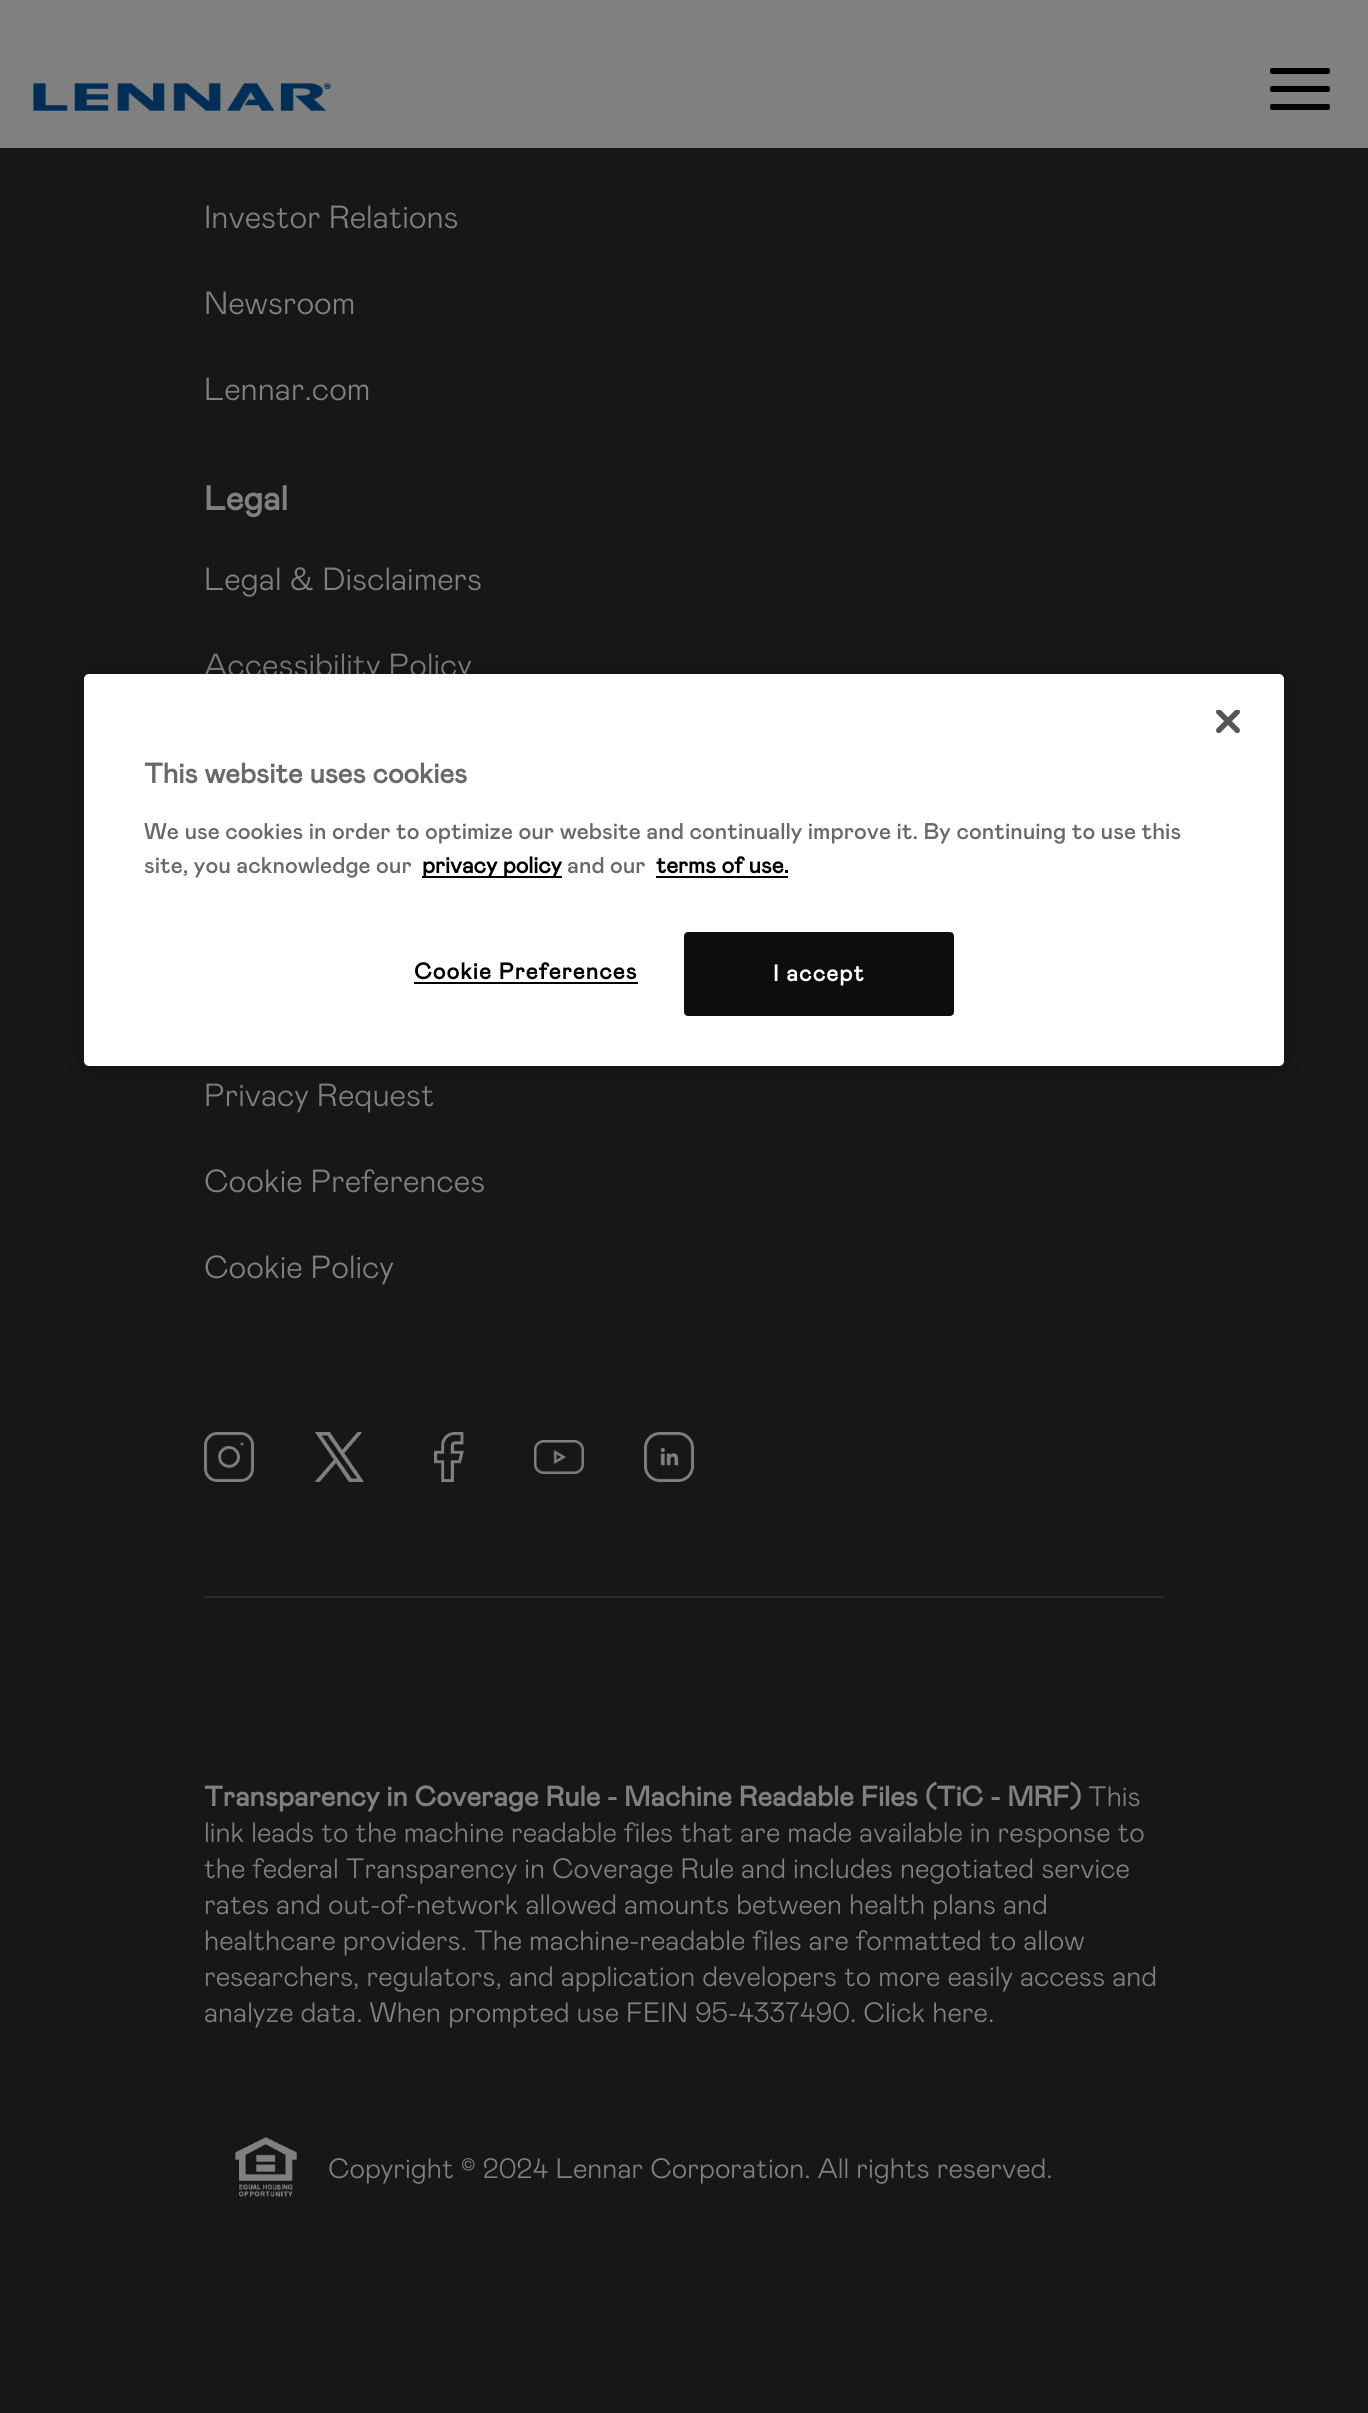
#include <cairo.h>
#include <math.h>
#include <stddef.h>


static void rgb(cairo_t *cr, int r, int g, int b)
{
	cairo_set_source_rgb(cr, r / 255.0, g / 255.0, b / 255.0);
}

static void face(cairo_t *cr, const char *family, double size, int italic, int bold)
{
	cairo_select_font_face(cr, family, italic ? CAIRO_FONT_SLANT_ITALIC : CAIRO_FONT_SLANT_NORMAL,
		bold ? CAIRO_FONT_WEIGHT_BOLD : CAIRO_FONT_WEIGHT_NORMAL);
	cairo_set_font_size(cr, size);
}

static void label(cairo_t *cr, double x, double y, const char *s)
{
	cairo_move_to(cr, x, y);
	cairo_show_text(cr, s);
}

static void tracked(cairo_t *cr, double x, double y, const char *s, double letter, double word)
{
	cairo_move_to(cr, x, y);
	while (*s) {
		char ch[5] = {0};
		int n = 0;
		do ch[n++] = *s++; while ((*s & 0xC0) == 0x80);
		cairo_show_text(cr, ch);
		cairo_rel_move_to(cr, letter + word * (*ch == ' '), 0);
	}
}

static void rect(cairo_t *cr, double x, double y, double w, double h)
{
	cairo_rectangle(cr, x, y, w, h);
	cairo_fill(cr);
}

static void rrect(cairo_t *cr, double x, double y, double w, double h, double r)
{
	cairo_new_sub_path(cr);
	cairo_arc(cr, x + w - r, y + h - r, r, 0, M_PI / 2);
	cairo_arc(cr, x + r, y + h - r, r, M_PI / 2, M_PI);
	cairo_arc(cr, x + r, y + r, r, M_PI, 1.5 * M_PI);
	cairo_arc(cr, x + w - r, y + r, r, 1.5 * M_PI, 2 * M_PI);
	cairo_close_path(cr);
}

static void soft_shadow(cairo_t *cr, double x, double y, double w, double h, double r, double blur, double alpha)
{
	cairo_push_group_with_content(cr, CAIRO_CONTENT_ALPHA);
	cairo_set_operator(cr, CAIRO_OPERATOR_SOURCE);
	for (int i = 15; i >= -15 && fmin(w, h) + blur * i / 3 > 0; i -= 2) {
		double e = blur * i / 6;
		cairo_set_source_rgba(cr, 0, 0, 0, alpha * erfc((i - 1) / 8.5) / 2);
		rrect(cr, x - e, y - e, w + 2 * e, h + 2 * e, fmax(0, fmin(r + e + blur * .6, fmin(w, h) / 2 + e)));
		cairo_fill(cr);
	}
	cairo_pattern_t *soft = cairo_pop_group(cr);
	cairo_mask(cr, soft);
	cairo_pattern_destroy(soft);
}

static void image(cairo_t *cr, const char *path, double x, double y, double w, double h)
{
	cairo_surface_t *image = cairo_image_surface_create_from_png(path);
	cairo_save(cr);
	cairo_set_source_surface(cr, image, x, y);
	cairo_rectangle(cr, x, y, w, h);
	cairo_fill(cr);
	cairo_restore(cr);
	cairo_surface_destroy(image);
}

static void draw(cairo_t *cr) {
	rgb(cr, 23, 23, 23);
	cairo_paint(cr);
	rgb(cr, 128, 128, 128);
	rect(cr, 0, 0, 1368, 148);
	image(cr, "image0.png", 33, 83, 298, 28);
	rgb(cr, 0, 0, 0);
	rrect(cr, 1270, 68, 60, 6, 2);
	cairo_fill(cr);
	rrect(cr, 1270, 86, 60, 6, 2);
	cairo_fill(cr);
	rrect(cr, 1270, 104, 60, 6, 2);
	cairo_fill(cr);
	face(cr, "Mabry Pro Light", 32, 0, 0);
	rgb(cr, 128, 128, 128);
	label(cr, 204, 228, "Investor Relations");
	label(cr, 204, 314, "Newsroom");
	label(cr, 204, 400, "Lennar.com");
	face(cr, "Mabry Pro", 34, 0, 1);
	label(cr, 204, 510, "Legal");
	face(cr, "Mabry Pro Light", 32, 0, 0);
	label(cr, 204, 590, "Legal & Disclaimers");
	label(cr, 204, 676, "Accessibility Policy");
	label(cr, 204, 1106, "Privacy Request");
	label(cr, 204, 1192, "Cookie Preferences");
	label(cr, 204, 1278, "Cookie Policy");
	image(cr, "image1.png", 204, 1432, 50, 50);
	image(cr, "image2.png", 314, 1432, 50, 50);
	image(cr, "image3.png", 434, 1432, 30, 50);
	image(cr, "image4.png", 534, 1440, 50, 34);
	image(cr, "image5.png", 644, 1432, 50, 50);
	rgb(cr, 44, 44, 44);
	rect(cr, 204, 1596, 960, 2);
	face(cr, "Mabry Pro", 28, 0, 1);
	rgb(cr, 128, 128, 128);
	label(cr, 204, 1806, "Transparency in Coverage Rule - Machine Readable Files (TiC - MRF)");
	face(cr, "Mabry Pro Light", 28, 0, 0);
	label(cr, 1088, 1806, "This");
	label(cr, 204, 1842, "link leads to the machine readable files that are made available in response to");
	label(cr, 204, 1878, "the federal Transparency in Coverage Rule and includes negotiated service");
	label(cr, 204, 1914, "rates and out-of-network allowed amounts between health plans and");
	label(cr, 204, 1950, "healthcare providers. The machine-readable files are formatted to allow");
	label(cr, 204, 1986, "researchers, regulators, and application developers to more easily access and");
	label(cr, 204, 2022, "analyze data. When prompted use FEIN 95-4337490. Click here.");
	image(cr, "image6.png", 235, 2137, 62, 60);
	label(cr, 328, 2178, "Copyright © 2024 Lennar Corporation. All rights reserved.");
	rgb(cr, 0, 0, 0);
	soft_shadow(cr, 84, 674, 1200, 392, 5, 18, 0.2);
	rgb(cr, 255, 255, 255);
	rrect(cr, 84, 674, 1200, 392, 5);
	cairo_fill(cr);
	image(cr, "image7.png", 1216, 710, 24, 24);
	face(cr, "Mabry Pro", 28, 0, 1);
	rgb(cr, 105, 105, 105);
	label(cr, 144, 783, "This website uses cookies");
	face(cr, "Mabry Pro Medium", 22.75, 0, 0);
	label(cr, 144, 839, "We use cookies in order to optimize our website and continually improve it. By continuing to use this");
	label(cr, 144, 873, "site, you acknowledge our");
	rgb(cr, 0, 0, 0);
	rect(cr, 422, 876, 140, 2);
	face(cr, "Mabry Pro", 22.75, 0, 1);
	label(cr, 422, 873, "privacy policy");
	face(cr, "Mabry Pro Medium", 22.75, 0, 0);
	rgb(cr, 105, 105, 105);
	label(cr, 567, 873, "and our");
	face(cr, "Mabry Pro", 22.75, 0, 1);
	rgb(cr, 0, 0, 0);
	label(cr, 656, 873, "terms of use.");
	rect(cr, 656, 876, 132, 2);
	tracked(cr, 414, 979, "Cookie Preferences", 1.1, 0);
	rect(cr, 414, 982, 224, 2);
	rgb(cr, 12, 13, 13);
	rrect(cr, 685, 933, 268, 82, 3);
	cairo_fill_preserve(cr);
	cairo_stroke(cr);
	rgb(cr, 255, 255, 255);
	tracked(cr, 773, 981, "I accept", 1.1, 0);
}

int main(void) {
	cairo_surface_t *surface = cairo_image_surface_create(CAIRO_FORMAT_RGB24, 1368, 2413);
	cairo_t *cr = cairo_create(surface);
	cairo_font_options_t *options = cairo_font_options_create();
	cairo_font_options_set_hint_metrics(options, CAIRO_HINT_METRICS_OFF);
	cairo_font_options_set_hint_style(options, CAIRO_HINT_STYLE_NONE);
	cairo_set_font_options(cr, options);
	cairo_set_miter_limit(cr, 4);
	draw(cr);
	cairo_surface_write_to_png(surface, "render.png");
	cairo_font_options_destroy(options);
	cairo_destroy(cr);
	cairo_surface_destroy(surface);
	return 0;
}
